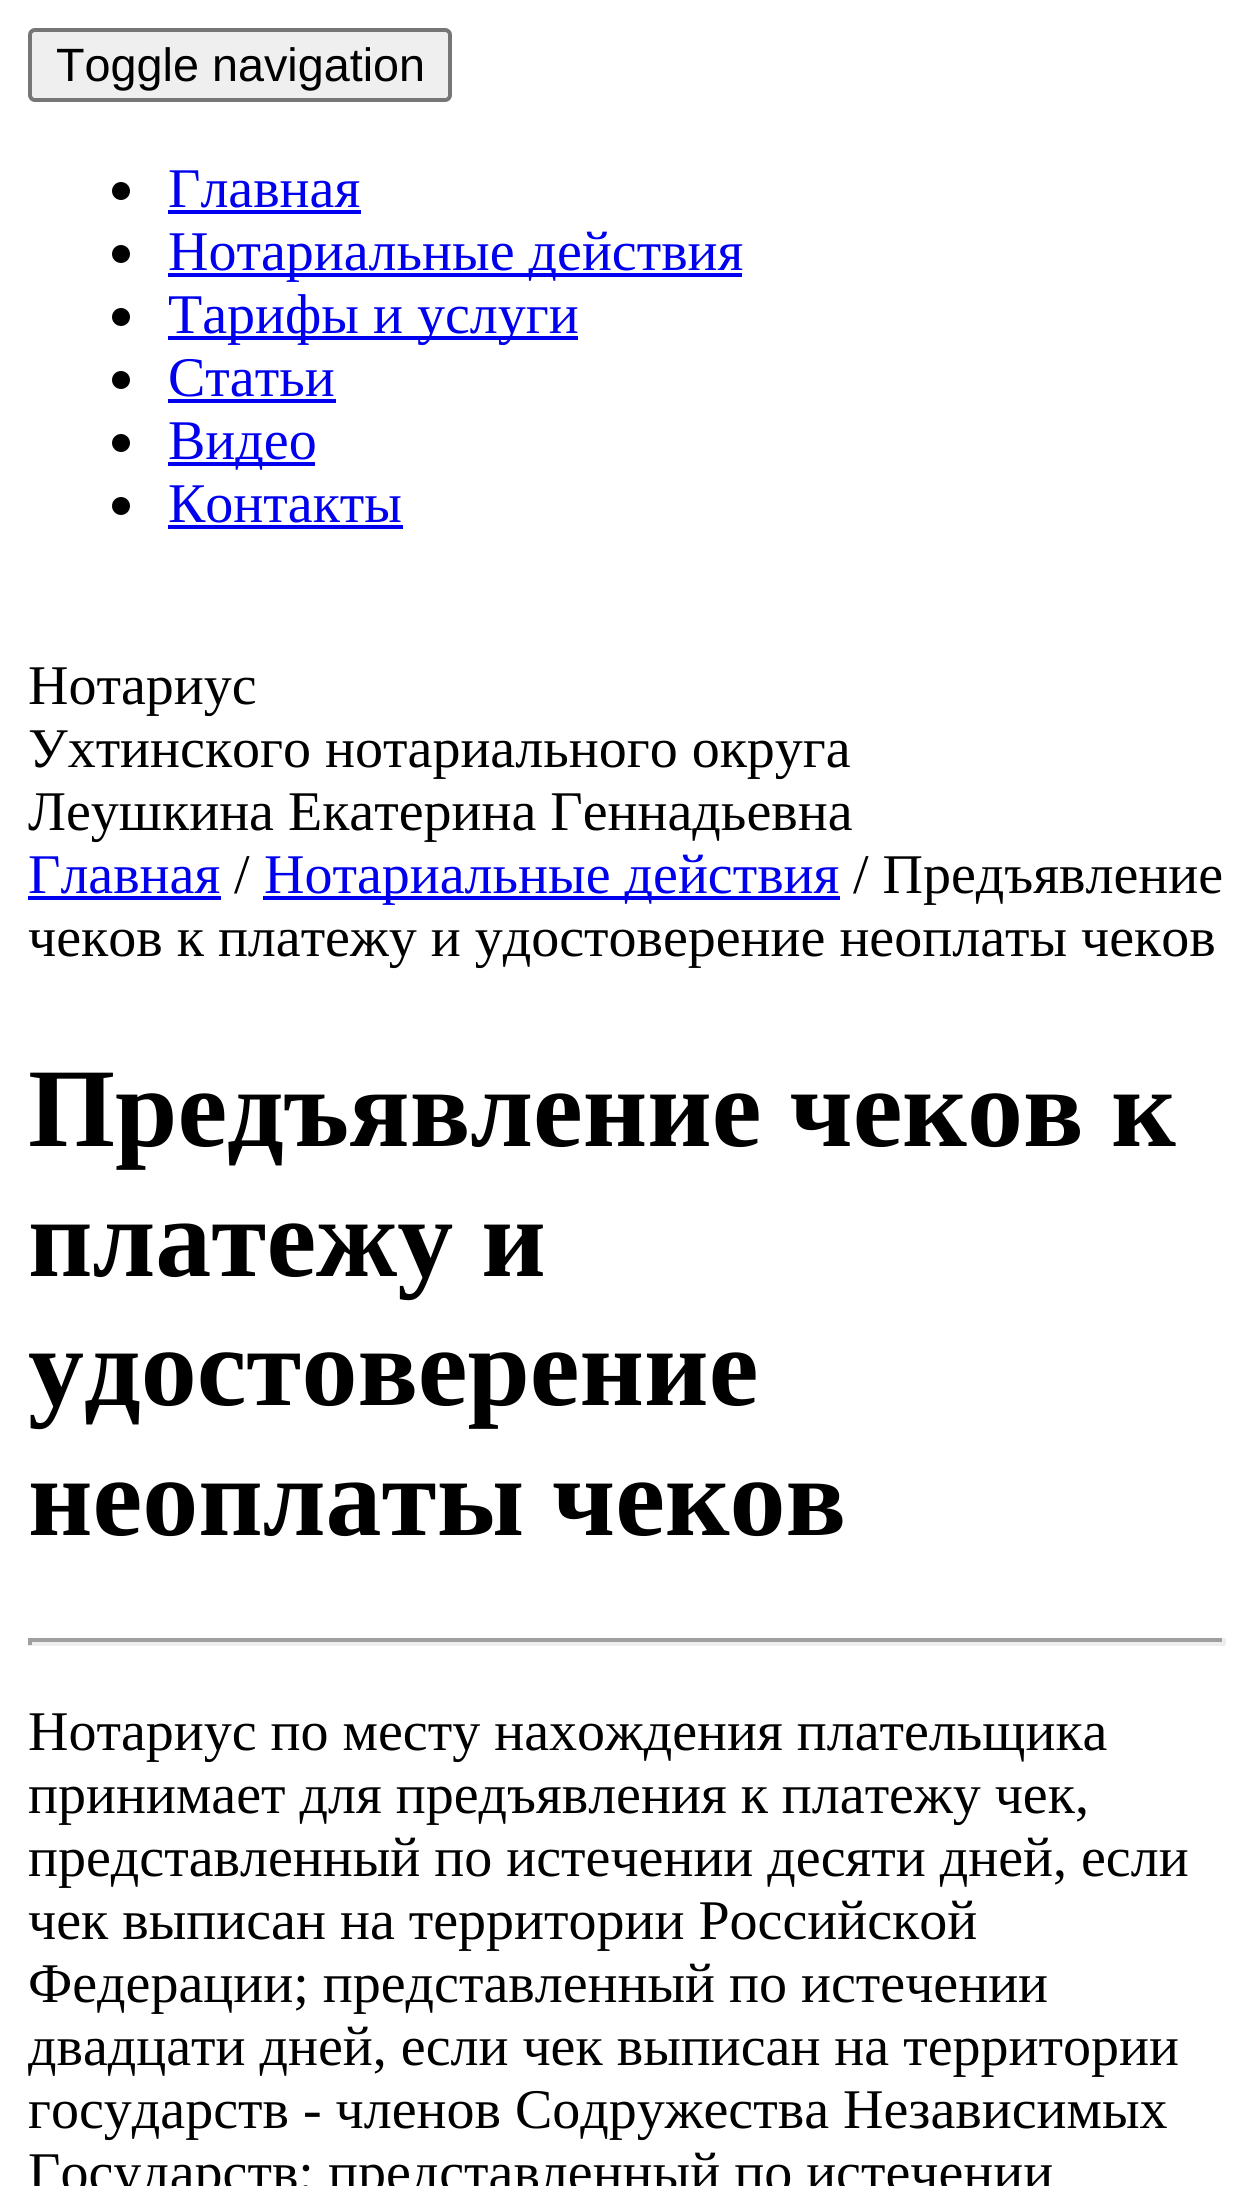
#include <cairo.h>
#include <math.h>
#include <stddef.h>


static void rgb(cairo_t *cr, int r, int g, int b)
{
	cairo_set_source_rgb(cr, r / 255.0, g / 255.0, b / 255.0);
}

static void face(cairo_t *cr, const char *family, double size, int italic, int bold)
{
	cairo_select_font_face(cr, family, italic ? CAIRO_FONT_SLANT_ITALIC : CAIRO_FONT_SLANT_NORMAL,
		bold ? CAIRO_FONT_WEIGHT_BOLD : CAIRO_FONT_WEIGHT_NORMAL);
	cairo_set_font_size(cr, size);
}

static void label(cairo_t *cr, double x, double y, const char *s)
{
	cairo_move_to(cr, x, y);
	cairo_show_text(cr, s);
}

static void rect(cairo_t *cr, double x, double y, double w, double h)
{
	cairo_rectangle(cr, x, y, w, h);
	cairo_fill(cr);
}

static void rrect(cairo_t *cr, double x, double y, double w, double h, double r)
{
	cairo_new_sub_path(cr);
	cairo_arc(cr, x + w - r, y + h - r, r, 0, M_PI / 2);
	cairo_arc(cr, x + r, y + h - r, r, M_PI / 2, M_PI);
	cairo_arc(cr, x + r, y + r, r, M_PI, 1.5 * M_PI);
	cairo_arc(cr, x + w - r, y + r, r, 1.5 * M_PI, 2 * M_PI);
	cairo_close_path(cr);
}

static void draw(cairo_t *cr) {
	rgb(cr, 255, 255, 255);
	cairo_paint(cr);
	rgb(cr, 239, 239, 239);
	rrect(cr, 30, 30, 420, 70, 5);
	cairo_fill_preserve(cr);
	rgb(cr, 118, 118, 118);
	cairo_set_line_width(cr, 4);
	cairo_stroke(cr);
	face(cr, "Liberation Sans", 46.75, 0, 0);
	rgb(cr, 0, 0, 0);
	label(cr, 56, 81, "Toggle navigation");
	cairo_new_path(cr);
	cairo_arc(cr, 121, 191, 9, 0, 2 * M_PI);
	cairo_fill(cr);
	face(cr, "Liberation Serif", 56, 0, 0);
	rgb(cr, 0, 0, 238);
	label(cr, 168, 207, "Главная");
	rect(cr, 168, 210, 193, 4);
	rgb(cr, 0, 0, 0);
	cairo_new_path(cr);
	cairo_arc(cr, 121, 254, 9, 0, 2 * M_PI);
	cairo_fill(cr);
	rgb(cr, 0, 0, 238);
	rect(cr, 168, 273, 574, 4);
	label(cr, 168, 270, "Нотариальные действия");
	rgb(cr, 0, 0, 0);
	cairo_new_path(cr);
	cairo_arc(cr, 121, 317, 9, 0, 2 * M_PI);
	cairo_fill(cr);
	rgb(cr, 0, 0, 238);
	rect(cr, 168, 336, 410, 4);
	label(cr, 168, 333, "Тарифы и услуги");
	rgb(cr, 0, 0, 0);
	cairo_new_path(cr);
	cairo_arc(cr, 121, 380, 9, 0, 2 * M_PI);
	cairo_fill(cr);
	rgb(cr, 0, 0, 238);
	label(cr, 168, 396, "Статьи");
	rect(cr, 168, 399, 168, 4);
	rgb(cr, 0, 0, 0);
	cairo_new_path(cr);
	cairo_arc(cr, 121, 443, 9, 0, 2 * M_PI);
	cairo_fill(cr);
	rgb(cr, 0, 0, 238);
	rect(cr, 168, 462, 147, 4);
	label(cr, 168, 459, "Видео");
	rgb(cr, 0, 0, 0);
	cairo_new_path(cr);
	cairo_arc(cr, 121, 506, 9, 0, 2 * M_PI);
	cairo_fill(cr);
	rgb(cr, 0, 0, 238);
	label(cr, 168, 522, "Контакты");
	rect(cr, 168, 525, 235, 4);
	rgb(cr, 0, 0, 0);
	label(cr, 28, 704, "Нотариус");
	label(cr, 28, 767, "Ухтинского нотариального округа");
	label(cr, 28, 830, "Леушкина Екатерина Геннадьевна");
	rgb(cr, 0, 0, 238);
	label(cr, 28, 893, "Главная");
	rect(cr, 28, 896, 193, 4);
	rgb(cr, 0, 0, 0);
	label(cr, 234, 893, "/");
	rgb(cr, 0, 0, 238);
	rect(cr, 263, 896, 577, 4);
	label(cr, 264, 893, "Нотариальные действия");
	rgb(cr, 0, 0, 0);
	label(cr, 853, 893, "/ Предъявление");
	label(cr, 28, 956, "чеков к платежу и удостоверение неоплаты чеков");
	face(cr, "Liberation Serif", 112, 0, 1);
	label(cr, 28, 1146, "Предъявление чеков к");
	label(cr, 28, 1276, "платежу и");
	label(cr, 28, 1405, "удостоверение");
	label(cr, 28, 1535, "неоплаты чеков");
	rgb(cr, 159, 159, 159);
	rect(cr, 28, 1638, 1197, 4);
	rgb(cr, 238, 238, 238);
	rect(cr, 1222, 1638, 4, 7);
	rect(cr, 28, 1642, 1197, 4);
	rgb(cr, 159, 159, 159);
	rect(cr, 28, 1638, 4, 7);
	face(cr, "Liberation Serif", 56, 0, 0);
	rgb(cr, 0, 0, 0);
	label(cr, 28, 1750, "Нотариус по месту нахождения плательщика");
	label(cr, 28, 1813, "принимает для предъявления к платежу чек,");
	label(cr, 28, 1876, "представленный по истечении десяти дней, если");
	label(cr, 28, 1939, "чек выписан на территории Российской");
	label(cr, 28, 2002, "Федерации; представленный по истечении");
	label(cr, 28, 2065, "двадцати дней, если чек выписан на территории");
	label(cr, 28, 2128, "государств - членов Содружества Независимых");
	label(cr, 28, 2191, "Государств; представленный по истечении");
}

int main(void) {
	cairo_surface_t *surface = cairo_image_surface_create(CAIRO_FORMAT_RGB24, 1252, 2186);
	cairo_t *cr = cairo_create(surface);
	cairo_font_options_t *options = cairo_font_options_create();
	cairo_font_options_set_hint_metrics(options, CAIRO_HINT_METRICS_OFF);
	cairo_font_options_set_hint_style(options, CAIRO_HINT_STYLE_NONE);
	cairo_set_font_options(cr, options);
	cairo_set_miter_limit(cr, 4);
	draw(cr);
	cairo_surface_write_to_png(surface, "render.png");
	cairo_font_options_destroy(options);
	cairo_destroy(cr);
	cairo_surface_destroy(surface);
	return 0;
}
